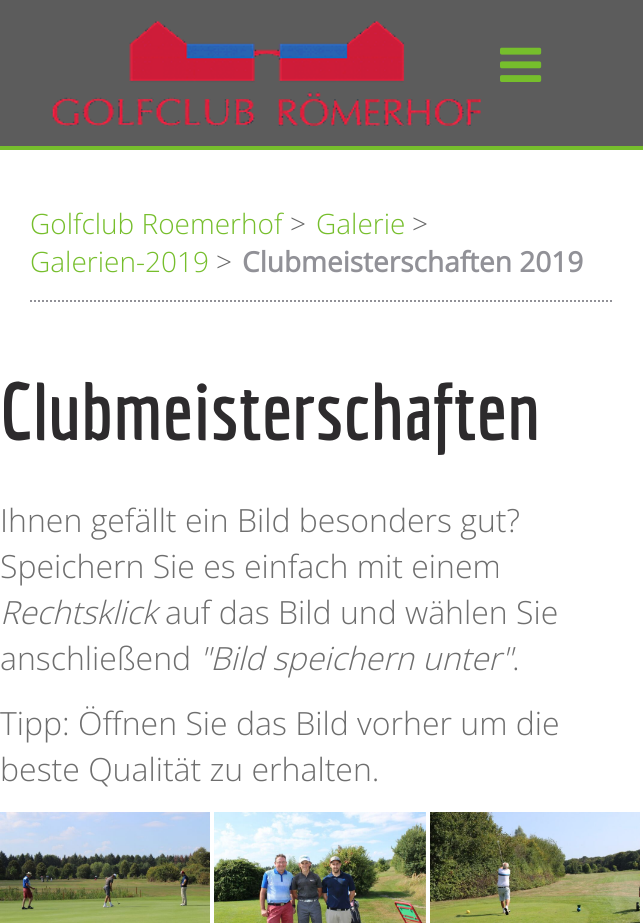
#include <cairo.h>
#include <math.h>
#include <stddef.h>


static void rgb(cairo_t *cr, int r, int g, int b)
{
	cairo_set_source_rgb(cr, r / 255.0, g / 255.0, b / 255.0);
}

static void face(cairo_t *cr, const char *family, double size, int italic, int bold)
{
	cairo_select_font_face(cr, family, italic ? CAIRO_FONT_SLANT_ITALIC : CAIRO_FONT_SLANT_NORMAL,
		bold ? CAIRO_FONT_WEIGHT_BOLD : CAIRO_FONT_WEIGHT_NORMAL);
	cairo_set_font_size(cr, size);
}

static void label(cairo_t *cr, double x, double y, const char *s)
{
	cairo_move_to(cr, x, y);
	cairo_show_text(cr, s);
}

static void rect(cairo_t *cr, double x, double y, double w, double h)
{
	cairo_rectangle(cr, x, y, w, h);
	cairo_fill(cr);
}

static void image(cairo_t *cr, const char *path, double x, double y, double w, double h)
{
	cairo_surface_t *image = cairo_image_surface_create_from_png(path);
	cairo_save(cr);
	cairo_set_source_surface(cr, image, x, y);
	cairo_rectangle(cr, x, y, w, h);
	cairo_fill(cr);
	cairo_restore(cr);
	cairo_surface_destroy(image);
}

static void draw(cairo_t *cr) {
	rgb(cr, 255, 255, 255);
	cairo_paint(cr);
	rgb(cr, 92, 92, 92);
	rect(cr, 0, 0, 643, 146);
	rgb(cr, 118, 190, 44);
	rect(cr, 0, 146, 643, 4);
	image(cr, "image0.png", 51, 21, 430, 105);
	image(cr, "image1.png", 500, 47, 42, 35);
	cairo_new_path(cr);
	cairo_move_to(cr, 30, 301);
	cairo_line_to(cr, 614, 301);
	rgb(cr, 145, 145, 151);
	cairo_set_dash(cr, (double[]){2, 2}, 2, 0);
	cairo_stroke(cr);
	face(cr, "Open Sans Light", 28, 0, 0);
	rgb(cr, 118, 190, 44);
	label(cr, 30, 234, "Golfclub Roemerhof");
	rgb(cr, 102, 102, 102);
	label(cr, 290, 234, ">");
	rgb(cr, 118, 190, 44);
	label(cr, 316, 234, "Galerie");
	rgb(cr, 102, 102, 102);
	label(cr, 412, 234, ">");
	rgb(cr, 118, 190, 44);
	label(cr, 30, 272, "Galerien-2019");
	rgb(cr, 102, 102, 102);
	label(cr, 216, 272, ">");
	face(cr, "Open Sans", 28, 0, 1);
	rgb(cr, 145, 145, 151);
	label(cr, 242, 272, "Clubmeisterschaften 2019");
	face(cr, "Economica", 80, 0, 1);
	rgb(cr, 45, 43, 45);
	label(cr, 0, 440, "Clubmeisterschaften");
	face(cr, "Open Sans Light", 32, 0, 0);
	rgb(cr, 110, 110, 110);
	label(cr, 0, 532, "Ihnen gefällt ein Bild besonders gut?");
	label(cr, 0, 578, "Speichern Sie es einfach mit einem");
	face(cr, "Open Sans Light", 32, 1, 0);
	label(cr, 0, 624, "Rechtsklick");
	face(cr, "Open Sans Light", 32, 0, 0);
	label(cr, 165, 624, "auf das Bild und wählen Sie");
	label(cr, 0, 670, "anschließend");
	face(cr, "Open Sans Light", 32, 1, 0);
	label(cr, 199, 670, "\"Bild speichern unter\"");
	face(cr, "Open Sans Light", 32, 0, 0);
	label(cr, 512, 670, ".");
	label(cr, 0, 735, "Tipp: Öffnen Sie das Bild vorher um die");
	label(cr, 0, 781, "beste Qualität zu erhalten.");
	image(cr, "image2.png", 0, 812, 210, 111);
	image(cr, "image3.png", 214, 812, 212, 111);
	image(cr, "image4.png", 430, 812, 210, 111);
}

int main(void) {
	cairo_surface_t *surface = cairo_image_surface_create(CAIRO_FORMAT_RGB24, 643, 923);
	cairo_t *cr = cairo_create(surface);
	cairo_font_options_t *options = cairo_font_options_create();
	cairo_font_options_set_hint_metrics(options, CAIRO_HINT_METRICS_OFF);
	cairo_font_options_set_hint_style(options, CAIRO_HINT_STYLE_NONE);
	cairo_set_font_options(cr, options);
	cairo_set_miter_limit(cr, 4);
	draw(cr);
	cairo_surface_write_to_png(surface, "render.png");
	cairo_font_options_destroy(options);
	cairo_destroy(cr);
	cairo_surface_destroy(surface);
	return 0;
}
